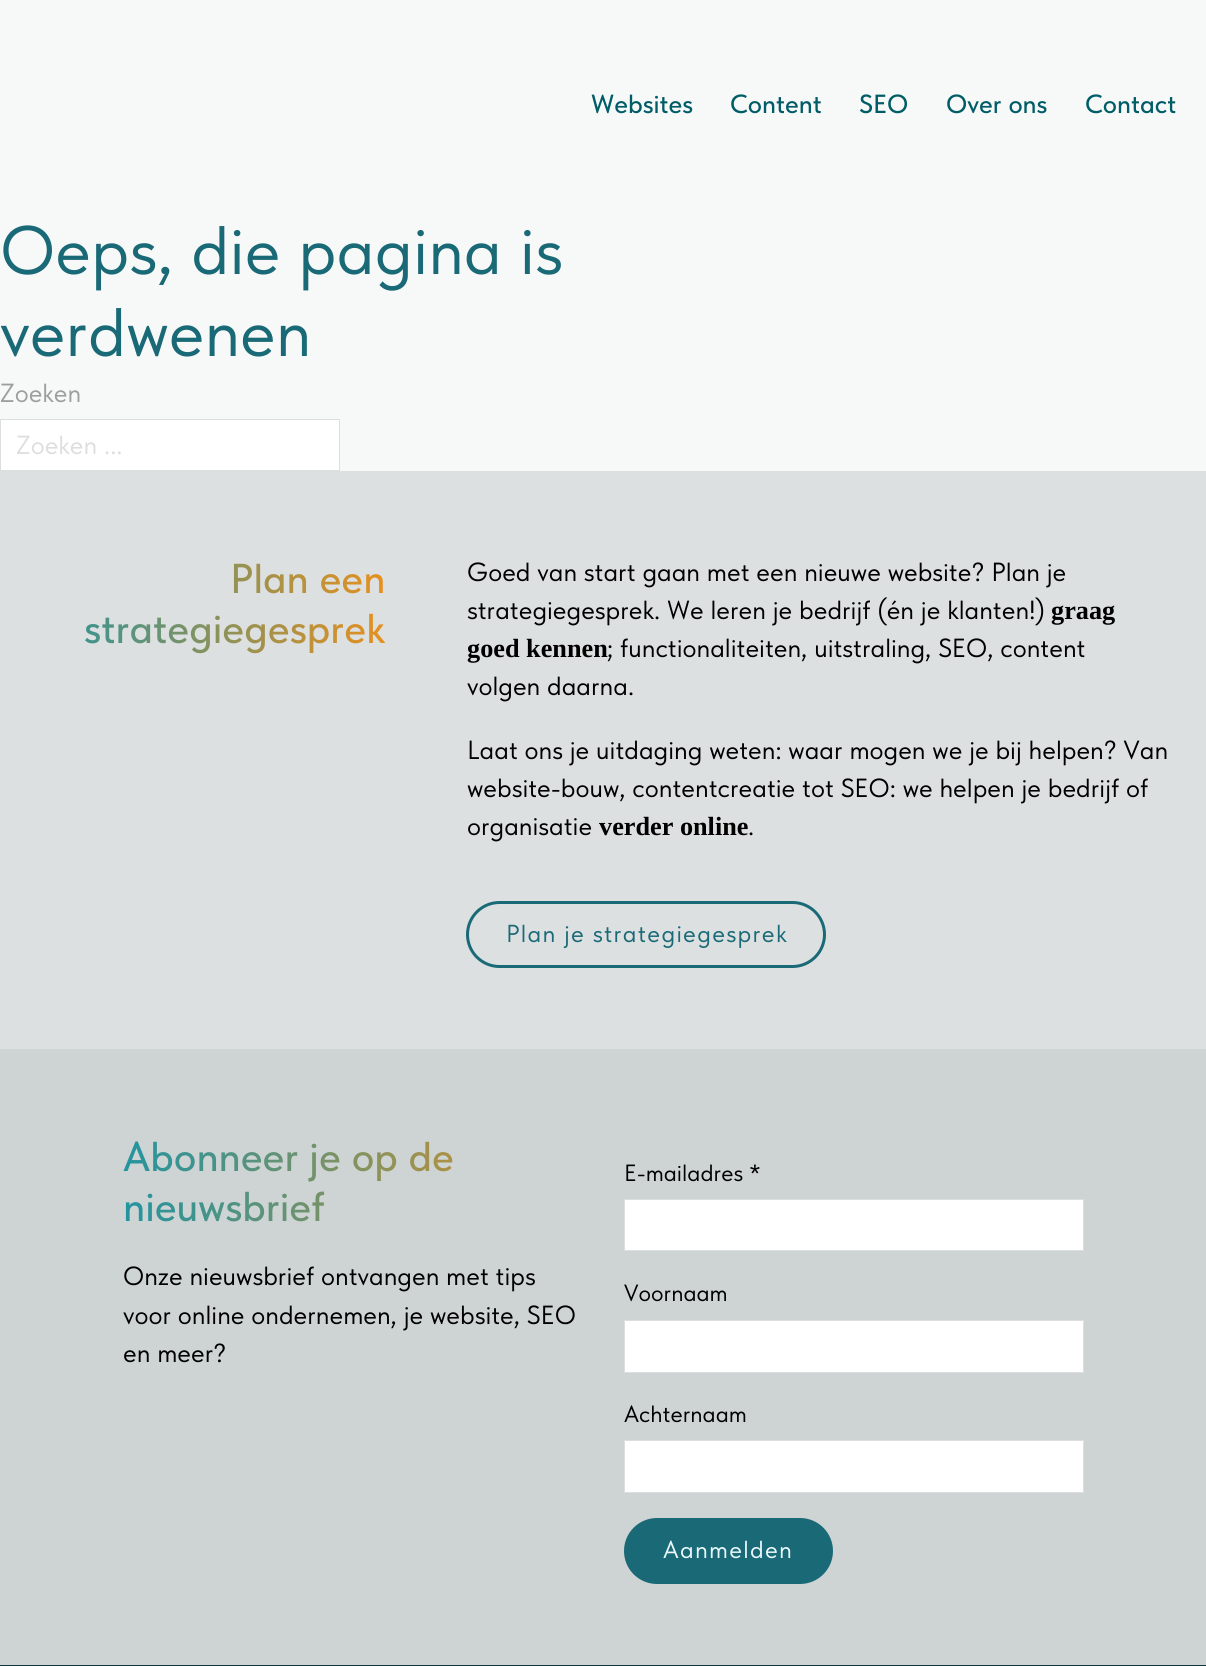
#include <cairo.h>
#include <math.h>
#include <stddef.h>


static void rgb(cairo_t *cr, int r, int g, int b)
{
	cairo_set_source_rgb(cr, r / 255.0, g / 255.0, b / 255.0);
}

static void face(cairo_t *cr, const char *family, double size, int italic, int bold)
{
	cairo_select_font_face(cr, family, italic ? CAIRO_FONT_SLANT_ITALIC : CAIRO_FONT_SLANT_NORMAL,
		bold ? CAIRO_FONT_WEIGHT_BOLD : CAIRO_FONT_WEIGHT_NORMAL);
	cairo_set_font_size(cr, size);
}

static void label(cairo_t *cr, double x, double y, const char *s)
{
	cairo_move_to(cr, x, y);
	cairo_show_text(cr, s);
}

static void tracked(cairo_t *cr, double x, double y, const char *s, double letter, double word)
{
	cairo_move_to(cr, x, y);
	while (*s) {
		char ch[5] = {0};
		int n = 0;
		do ch[n++] = *s++; while ((*s & 0xC0) == 0x80);
		cairo_show_text(cr, ch);
		cairo_rel_move_to(cr, letter + word * (*ch == ' '), 0);
	}
}

static void rect(cairo_t *cr, double x, double y, double w, double h)
{
	cairo_rectangle(cr, x, y, w, h);
	cairo_fill(cr);
}

static void rrect(cairo_t *cr, double x, double y, double w, double h, double r)
{
	cairo_new_sub_path(cr);
	cairo_arc(cr, x + w - r, y + h - r, r, 0, M_PI / 2);
	cairo_arc(cr, x + r, y + h - r, r, M_PI / 2, M_PI);
	cairo_arc(cr, x + r, y + r, r, M_PI, 1.5 * M_PI);
	cairo_arc(cr, x + w - r, y + r, r, 1.5 * M_PI, 2 * M_PI);
	cairo_close_path(cr);
}

static void draw(cairo_t *cr) {
	cairo_pattern_t *gradient;
	rgb(cr, 247, 248, 248);
	cairo_paint(cr);
	face(cr, "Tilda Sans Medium", 26.25, 0, 0);
	rgb(cr, 0, 92, 102);
	label(cr, 591, 113, "Websites");
	label(cr, 730, 113, "Content");
	label(cr, 859, 113, "SEO");
	label(cr, 946, 113, "Over ons");
	label(cr, 1085, 113, "Contact");
	face(cr, "Tilda Sans", 68.5, 0, 0);
	rgb(cr, 25, 105, 118);
	label(cr, 0, 274, "Oeps, die pagina is");
	label(cr, 0, 356, "verdwenen");
	face(cr, "Tilda Sans", 26.25, 0, 0);
	rgb(cr, 158, 158, 158);
	label(cr, 0, 402, "Zoeken");
	rgb(cr, 255, 255, 255);
	cairo_rectangle(cr, 0.5, 419.5, 339, 51);
	cairo_fill_preserve(cr);
	rgb(cr, 221, 222, 223);
	cairo_set_line_width(cr, 1);
	cairo_stroke(cr);
	label(cr, 16, 454, "Zoeken ...");
	rgb(cr, 220, 224, 224);
	rect(cr, 0, 471, 1206, 578);
	face(cr, "Tilda Sans Medium", 41.75, 0, 0);
	gradient = cairo_pattern_create_linear(30, 603, 385, 603);
	cairo_pattern_add_color_stop_rgba(gradient, 0, 0.133, 0.58, 0.631, 1);
	cairo_pattern_add_color_stop_rgba(gradient, 1, 0.906, 0.565, 0.118, 1);
	cairo_set_source(cr, gradient);
	cairo_pattern_destroy(gradient);
	label(cr, 230, 593, "Plan een");
	label(cr, 84, 643, "strategiegesprek");
	face(cr, "Tilda Sans", 26.25, 0, 0);
	rgb(cr, 0, 0, 0);
	label(cr, 467, 581, "Goed van start gaan met een nieuwe website? Plan je");
	label(cr, 467, 619, "strategiegesprek. We leren je bedrijf (én je klanten!)");
	face(cr, "Liberation Serif", 26.25, 0, 1);
	label(cr, 1051, 619, "graag");
	label(cr, 467, 657, "goed kennen");
	face(cr, "Tilda Sans", 26.25, 0, 0);
	label(cr, 607, 657, "; functionaliteiten, uitstraling, SEO, content");
	label(cr, 467, 695, "volgen daarna.");
	label(cr, 467, 759, "Laat ons je uitdaging weten: waar mogen we je bij helpen? Van");
	label(cr, 467, 797, "website-bouw, contentcreatie tot SEO: we helpen je bedrijf of");
	label(cr, 467, 835, "organisatie");
	face(cr, "Liberation Serif", 26.25, 0, 1);
	label(cr, 599, 835, "verder online");
	face(cr, "Tilda Sans", 26.25, 0, 0);
	label(cr, 748, 835, ".");
	rrect(cr, 467.5, 902.5, 357, 64, 32);
	rgb(cr, 25, 105, 118);
	cairo_set_line_width(cr, 3);
	cairo_stroke(cr);
	face(cr, "Tilda Sans", 24.6, 0, 0);
	tracked(cr, 506, 942, "Plan je strategiegesprek", 1.25, 0);
	rgb(cr, 206, 212, 212);
	rect(cr, 0, 1049, 1206, 616);
	face(cr, "Tilda Sans Medium", 41.75, 0, 0);
	gradient = cairo_pattern_create_linear(123, 1181, 593, 1181);
	cairo_pattern_add_color_stop_rgba(gradient, 0, 0.133, 0.58, 0.631, 1);
	cairo_pattern_add_color_stop_rgba(gradient, 1, 0.906, 0.565, 0.118, 1);
	cairo_set_source(cr, gradient);
	cairo_pattern_destroy(gradient);
	label(cr, 123, 1171, "Abonneer je op de");
	label(cr, 123, 1221, "nieuwsbrief");
	face(cr, "Tilda Sans", 26.25, 0, 0);
	rgb(cr, 0, 0, 0);
	label(cr, 123, 1285, "Onze nieuwsbrief ontvangen met tips");
	label(cr, 123, 1324, "voor online ondernemen, je website, SEO");
	label(cr, 123, 1362, "en meer?");
	face(cr, "Tilda Sans", 23.5, 0, 0);
	label(cr, 624, 1181, "E-mailadres *");
	rgb(cr, 255, 255, 255);
	cairo_rectangle(cr, 624.5, 1199.5, 459, 51);
	cairo_fill_preserve(cr);
	rgb(cr, 221, 222, 223);
	cairo_set_line_width(cr, 1);
	cairo_stroke(cr);
	rgb(cr, 0, 0, 0);
	label(cr, 624, 1301, "Voornaam");
	rgb(cr, 255, 255, 255);
	cairo_rectangle(cr, 624.5, 1320.5, 459, 52);
	cairo_fill_preserve(cr);
	rgb(cr, 221, 222, 223);
	cairo_stroke(cr);
	rgb(cr, 0, 0, 0);
	label(cr, 624, 1422, "Achternaam");
	rgb(cr, 255, 255, 255);
	cairo_rectangle(cr, 624.5, 1440.5, 459, 52);
	cairo_fill_preserve(cr);
	rgb(cr, 221, 222, 223);
	cairo_stroke(cr);
	rgb(cr, 25, 105, 118);
	rrect(cr, 625.5, 1519.5, 206, 63, 31.5);
	cairo_fill_preserve(cr);
	cairo_set_line_width(cr, 3);
	cairo_stroke(cr);
	face(cr, "Tilda Sans", 24.6, 0, 0);
	rgb(cr, 234, 248, 251);
	tracked(cr, 663, 1558, "Aanmelden", 1.25, 0);
	rgb(cr, 13, 56, 63);
	rect(cr, 0, 1665, 1206, 1);
}

int main(void) {
	cairo_surface_t *surface = cairo_image_surface_create(CAIRO_FORMAT_RGB24, 1206, 1666);
	cairo_t *cr = cairo_create(surface);
	cairo_font_options_t *options = cairo_font_options_create();
	cairo_font_options_set_hint_metrics(options, CAIRO_HINT_METRICS_OFF);
	cairo_font_options_set_hint_style(options, CAIRO_HINT_STYLE_NONE);
	cairo_set_font_options(cr, options);
	cairo_set_miter_limit(cr, 4);
	draw(cr);
	cairo_surface_write_to_png(surface, "render.png");
	cairo_font_options_destroy(options);
	cairo_destroy(cr);
	cairo_surface_destroy(surface);
	return 0;
}
